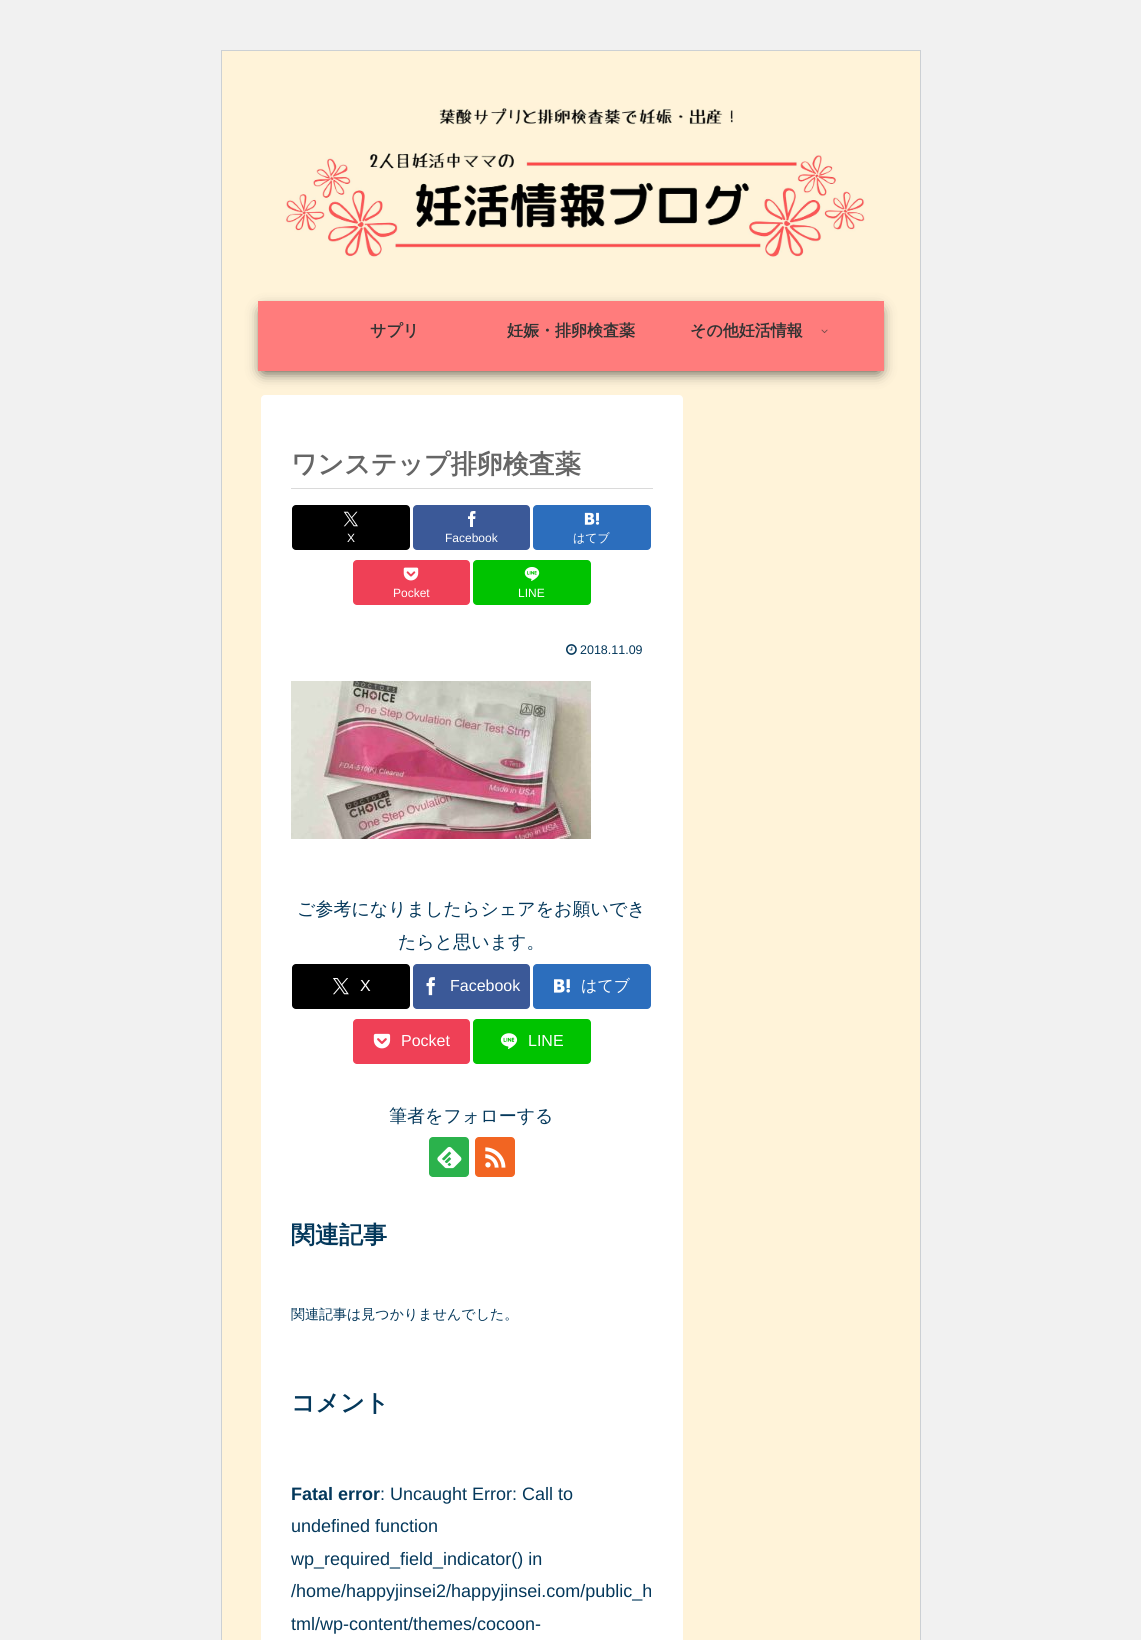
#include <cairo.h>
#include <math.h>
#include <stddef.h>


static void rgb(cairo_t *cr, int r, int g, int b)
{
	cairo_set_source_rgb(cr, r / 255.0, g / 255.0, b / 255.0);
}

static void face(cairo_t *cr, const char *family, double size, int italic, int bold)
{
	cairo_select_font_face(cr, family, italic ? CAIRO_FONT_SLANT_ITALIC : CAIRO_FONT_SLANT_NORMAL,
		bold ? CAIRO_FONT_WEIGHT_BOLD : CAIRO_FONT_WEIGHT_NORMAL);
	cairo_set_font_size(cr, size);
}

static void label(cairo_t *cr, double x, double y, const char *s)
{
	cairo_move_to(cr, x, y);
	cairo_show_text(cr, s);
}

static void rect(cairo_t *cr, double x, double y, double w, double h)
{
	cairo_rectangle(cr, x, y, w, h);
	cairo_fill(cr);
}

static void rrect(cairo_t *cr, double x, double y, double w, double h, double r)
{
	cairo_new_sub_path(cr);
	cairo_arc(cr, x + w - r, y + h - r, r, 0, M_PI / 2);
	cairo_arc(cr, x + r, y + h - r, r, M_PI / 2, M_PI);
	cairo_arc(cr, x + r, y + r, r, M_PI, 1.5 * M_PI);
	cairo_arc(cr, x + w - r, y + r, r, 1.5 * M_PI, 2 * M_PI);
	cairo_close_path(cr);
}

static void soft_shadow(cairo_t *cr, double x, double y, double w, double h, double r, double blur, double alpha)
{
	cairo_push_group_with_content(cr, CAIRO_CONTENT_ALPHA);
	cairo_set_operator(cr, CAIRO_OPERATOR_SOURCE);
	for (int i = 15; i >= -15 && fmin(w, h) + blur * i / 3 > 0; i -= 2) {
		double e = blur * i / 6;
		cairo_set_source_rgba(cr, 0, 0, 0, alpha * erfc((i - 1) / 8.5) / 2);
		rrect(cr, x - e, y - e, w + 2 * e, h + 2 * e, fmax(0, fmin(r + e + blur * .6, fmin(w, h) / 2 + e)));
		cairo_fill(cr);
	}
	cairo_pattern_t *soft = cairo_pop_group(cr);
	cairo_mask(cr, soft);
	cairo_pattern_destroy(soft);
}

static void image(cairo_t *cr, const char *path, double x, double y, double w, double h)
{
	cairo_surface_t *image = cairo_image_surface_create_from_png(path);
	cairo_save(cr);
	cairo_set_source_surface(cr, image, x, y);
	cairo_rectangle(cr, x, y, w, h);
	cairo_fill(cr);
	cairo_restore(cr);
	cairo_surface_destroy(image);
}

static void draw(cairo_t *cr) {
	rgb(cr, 241, 241, 241);
	cairo_paint(cr);
	rgb(cr, 255, 243, 217);
	cairo_rectangle(cr, 221.5, 50.5, 699, 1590);
	cairo_fill_preserve(cr);
	rgb(cr, 204, 208, 212);
	cairo_set_line_width(cr, 1);
	cairo_stroke(cr);
	image(cr, "image0.png", 285, 108, 580, 150);
	rgb(cr, 0, 0, 0);
	soft_shadow(cr, 263, 311, 616, 60, 0, 7.5, 0.8);
	rgb(cr, 255, 124, 124);
	rect(cr, 258, 301, 626, 70);
	face(cr, "WenQuanYi Zen Hei", 16, 0, 1);
	rgb(cr, 51, 51, 51);
	label(cr, 370, 336, "サプリ");
	label(cr, 507, 336, "妊娠・排卵検査薬");
	label(cr, 690, 336, "その他妊活情報");
	image(cr, "image1.png", 821, 329, 7, 5);
	rgb(cr, 255, 255, 255);
	rrect(cr, 261, 395, 422, 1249, 4);
	cairo_fill(cr);
	rgb(cr, 218, 218, 218);
	rect(cr, 291, 488, 362, 1);
	face(cr, "WenQuanYi Zen Hei", 26, 0, 1);
	rgb(cr, 102, 102, 102);
	label(cr, 291, 473, "ワンステップ排卵検査薬");
	rgb(cr, 0, 0, 0);
	rrect(cr, 292, 505, 118, 45, 4);
	cairo_fill(cr);
	image(cr, "image2.png", 343, 511, 15, 16);
	face(cr, "Liberation Sans", 12, 0, 0);
	rgb(cr, 255, 255, 255);
	label(cr, 347, 542, "X");
	rgb(cr, 59, 89, 152);
	rrect(cr, 413, 505, 117, 45, 4);
	cairo_fill(cr);
	image(cr, "image3.png", 468, 511, 8, 16);
	rgb(cr, 255, 255, 255);
	label(cr, 445, 542, "Facebook");
	rgb(cr, 44, 110, 189);
	rrect(cr, 533, 505, 118, 45, 4);
	cairo_fill(cr);
	image(cr, "image4.png", 584, 512, 16, 13);
	face(cr, "WenQuanYi Zen Hei Medium", 12, 0, 0);
	rgb(cr, 255, 255, 255);
	label(cr, 573, 542, "はてブ");
	rgb(cr, 239, 64, 86);
	rrect(cr, 353, 560, 117, 45, 4);
	cairo_fill(cr);
	image(cr, "image5.png", 403, 567, 16, 14);
	face(cr, "Liberation Sans", 12, 0, 0);
	rgb(cr, 255, 255, 255);
	label(cr, 393, 597, "Pocket");
	rgb(cr, 0, 195, 0);
	rrect(cr, 473, 560, 118, 45, 4);
	cairo_fill(cr);
	image(cr, "image6.png", 524, 567, 16, 14);
	rgb(cr, 255, 255, 255);
	label(cr, 518, 597, "LINE");
	image(cr, "image7.png", 566, 644, 11, 11);
	face(cr, "Liberation Sans", 12.5, 0, 0);
	rgb(cr, 4, 56, 91);
	label(cr, 580, 654, "2018.11.09");
	image(cr, "image8.png", 291, 681, 300, 158);
	face(cr, "WenQuanYi Zen Hei Medium", 18, 0, 0);
	label(cr, 297, 915, "ご参考になりましたらシェアをお願いでき");
	label(cr, 398, 948, "たらと思います。");
	rgb(cr, 0, 0, 0);
	rrect(cr, 292, 964, 118, 45, 4);
	cairo_fill(cr);
	image(cr, "image9.png", 333, 978, 16, 17);
	face(cr, "Liberation Sans", 16, 0, 0);
	rgb(cr, 255, 255, 255);
	label(cr, 360, 991, "X");
	rgb(cr, 59, 89, 152);
	rrect(cr, 413, 964, 117, 45, 4);
	cairo_fill(cr);
	image(cr, "image10.png", 426, 977, 9, 19);
	rgb(cr, 255, 255, 255);
	label(cr, 450, 991, "Facebook");
	rgb(cr, 44, 110, 189);
	rrect(cr, 533, 964, 118, 45, 4);
	cairo_fill(cr);
	image(cr, "image11.png", 554, 979, 16, 14);
	face(cr, "WenQuanYi Zen Hei Medium", 16, 0, 0);
	rgb(cr, 255, 255, 255);
	label(cr, 581, 991, "はてブ");
	rgb(cr, 239, 64, 86);
	rrect(cr, 353, 1019, 117, 45, 4);
	cairo_fill(cr);
	image(cr, "image12.png", 373, 1033, 18, 16);
	face(cr, "Liberation Sans", 16, 0, 0);
	rgb(cr, 255, 255, 255);
	label(cr, 401, 1046, "Pocket");
	rgb(cr, 0, 195, 0);
	rrect(cr, 473, 1019, 118, 45, 4);
	cairo_fill(cr);
	image(cr, "image13.png", 500, 1033, 18, 16);
	rgb(cr, 255, 255, 255);
	label(cr, 528, 1046, "LINE");
	face(cr, "WenQuanYi Zen Hei Medium", 18, 0, 0);
	rgb(cr, 4, 56, 91);
	label(cr, 389, 1122, "筆者をフォローする");
	rgb(cr, 43, 178, 76);
	rrect(cr, 429, 1137, 40, 40, 4);
	cairo_fill(cr);
	image(cr, "image14.png", 437, 1146, 25, 23);
	rgb(cr, 242, 101, 34);
	rrect(cr, 475, 1137, 40, 40, 4);
	cairo_fill(cr);
	image(cr, "image15.png", 485, 1147, 21, 21);
	face(cr, "WenQuanYi Zen Hei", 24, 0, 1);
	rgb(cr, 4, 56, 91);
	label(cr, 291, 1243, "関連記事");
	face(cr, "WenQuanYi Zen Hei Medium", 14, 0, 0);
	label(cr, 291, 1319, "関連記事は見つかりませんでした。");
	face(cr, "WenQuanYi Zen Hei", 24, 0, 1);
	label(cr, 291, 1411, "コメント");
	face(cr, "Liberation Sans", 18, 0, 1);
	label(cr, 291, 1500, "Fatal error");
	face(cr, "Liberation Sans", 18, 0, 0);
	label(cr, 380, 1500, ": Uncaught Error: Call to");
	label(cr, 291, 1532, "undefined function");
	label(cr, 291, 1565, "wp_required_field_indicator() in");
	label(cr, 291, 1597, "/home/happyjinsei2/happyjinsei.com/public_h");
	label(cr, 291, 1630, "tml/wp-content/themes/cocoon-");
}

int main(void) {
	cairo_surface_t *surface = cairo_image_surface_create(CAIRO_FORMAT_RGB24, 1141, 1640);
	cairo_t *cr = cairo_create(surface);
	cairo_font_options_t *options = cairo_font_options_create();
	cairo_font_options_set_hint_metrics(options, CAIRO_HINT_METRICS_OFF);
	cairo_font_options_set_hint_style(options, CAIRO_HINT_STYLE_NONE);
	cairo_set_font_options(cr, options);
	cairo_set_miter_limit(cr, 4);
	draw(cr);
	cairo_surface_write_to_png(surface, "render.png");
	cairo_font_options_destroy(options);
	cairo_destroy(cr);
	cairo_surface_destroy(surface);
	return 0;
}
